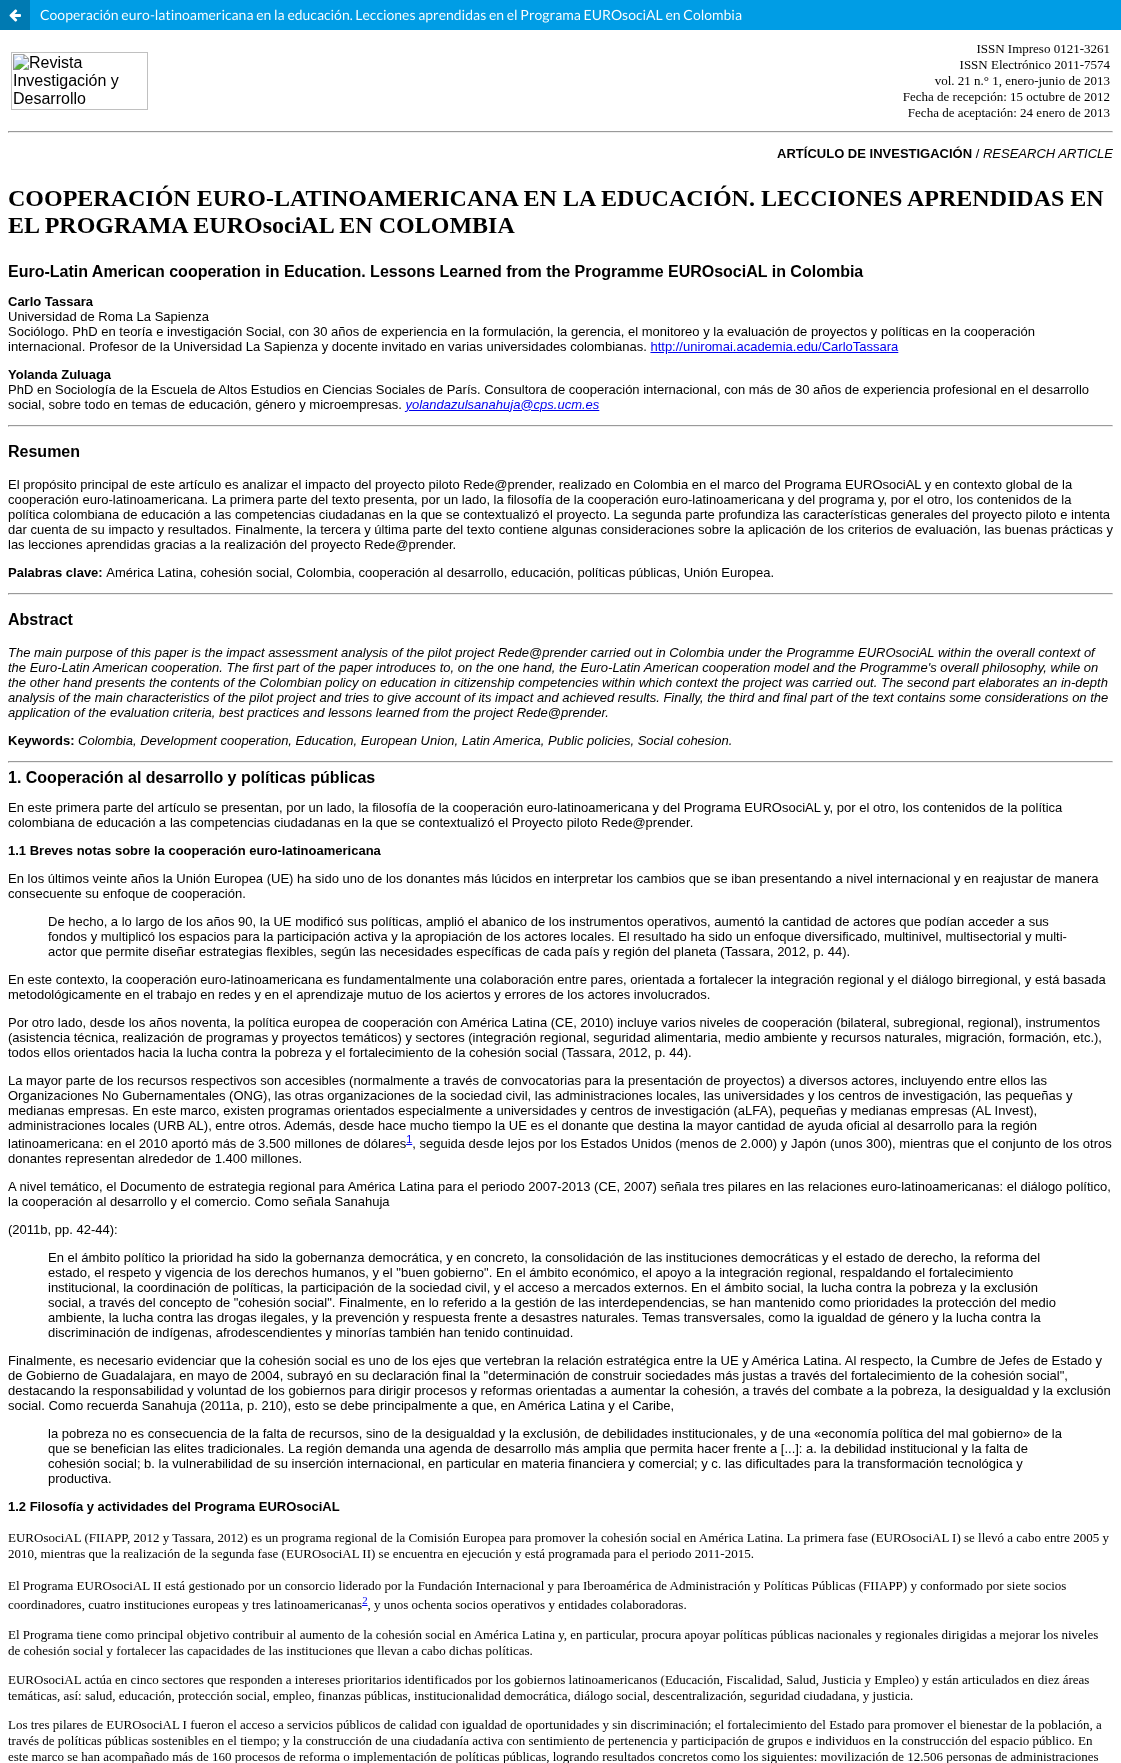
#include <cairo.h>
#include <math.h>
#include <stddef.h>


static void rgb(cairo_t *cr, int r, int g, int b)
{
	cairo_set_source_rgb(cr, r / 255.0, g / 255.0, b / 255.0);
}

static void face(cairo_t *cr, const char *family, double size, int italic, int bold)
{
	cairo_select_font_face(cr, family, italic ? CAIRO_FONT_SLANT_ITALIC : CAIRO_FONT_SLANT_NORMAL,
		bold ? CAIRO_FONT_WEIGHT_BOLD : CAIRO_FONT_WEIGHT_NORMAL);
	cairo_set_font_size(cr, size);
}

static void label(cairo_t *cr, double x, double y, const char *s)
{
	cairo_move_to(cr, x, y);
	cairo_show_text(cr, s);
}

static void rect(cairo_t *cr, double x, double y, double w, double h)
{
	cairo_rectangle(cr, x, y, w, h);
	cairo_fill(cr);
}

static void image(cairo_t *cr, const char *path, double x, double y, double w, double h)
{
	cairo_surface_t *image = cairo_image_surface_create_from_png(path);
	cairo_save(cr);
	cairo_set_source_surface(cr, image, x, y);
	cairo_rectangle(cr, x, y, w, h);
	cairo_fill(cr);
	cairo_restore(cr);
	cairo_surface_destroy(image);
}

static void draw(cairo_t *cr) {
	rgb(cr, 255, 255, 255);
	cairo_paint(cr);
	rgb(cr, 0, 157, 229);
	rect(cr, 30, 0, 1091, 30);
	rgb(cr, 0, 122, 178);
	rect(cr, 0, 0, 30, 30);
	image(cr, "image0.png", 9, 9, 12, 13);
	face(cr, "Lato", 14, 0, 0);
	rgb(cr, 255, 255, 255);
	label(cr, 40, 20, "Cooperación euro-latinoamericana en la educación. Lecciones aprendidas en el Programa EUROsociAL en Colombia");
	image(cr, "image1.png", 8, 45, 1105, 1718);
}

int main(void) {
	cairo_surface_t *surface = cairo_image_surface_create(CAIRO_FORMAT_RGB24, 1121, 1763);
	cairo_t *cr = cairo_create(surface);
	cairo_font_options_t *options = cairo_font_options_create();
	cairo_font_options_set_hint_metrics(options, CAIRO_HINT_METRICS_OFF);
	cairo_font_options_set_hint_style(options, CAIRO_HINT_STYLE_NONE);
	cairo_set_font_options(cr, options);
	cairo_set_miter_limit(cr, 4);
	draw(cr);
	cairo_surface_write_to_png(surface, "render.png");
	cairo_font_options_destroy(options);
	cairo_destroy(cr);
	cairo_surface_destroy(surface);
	return 0;
}
